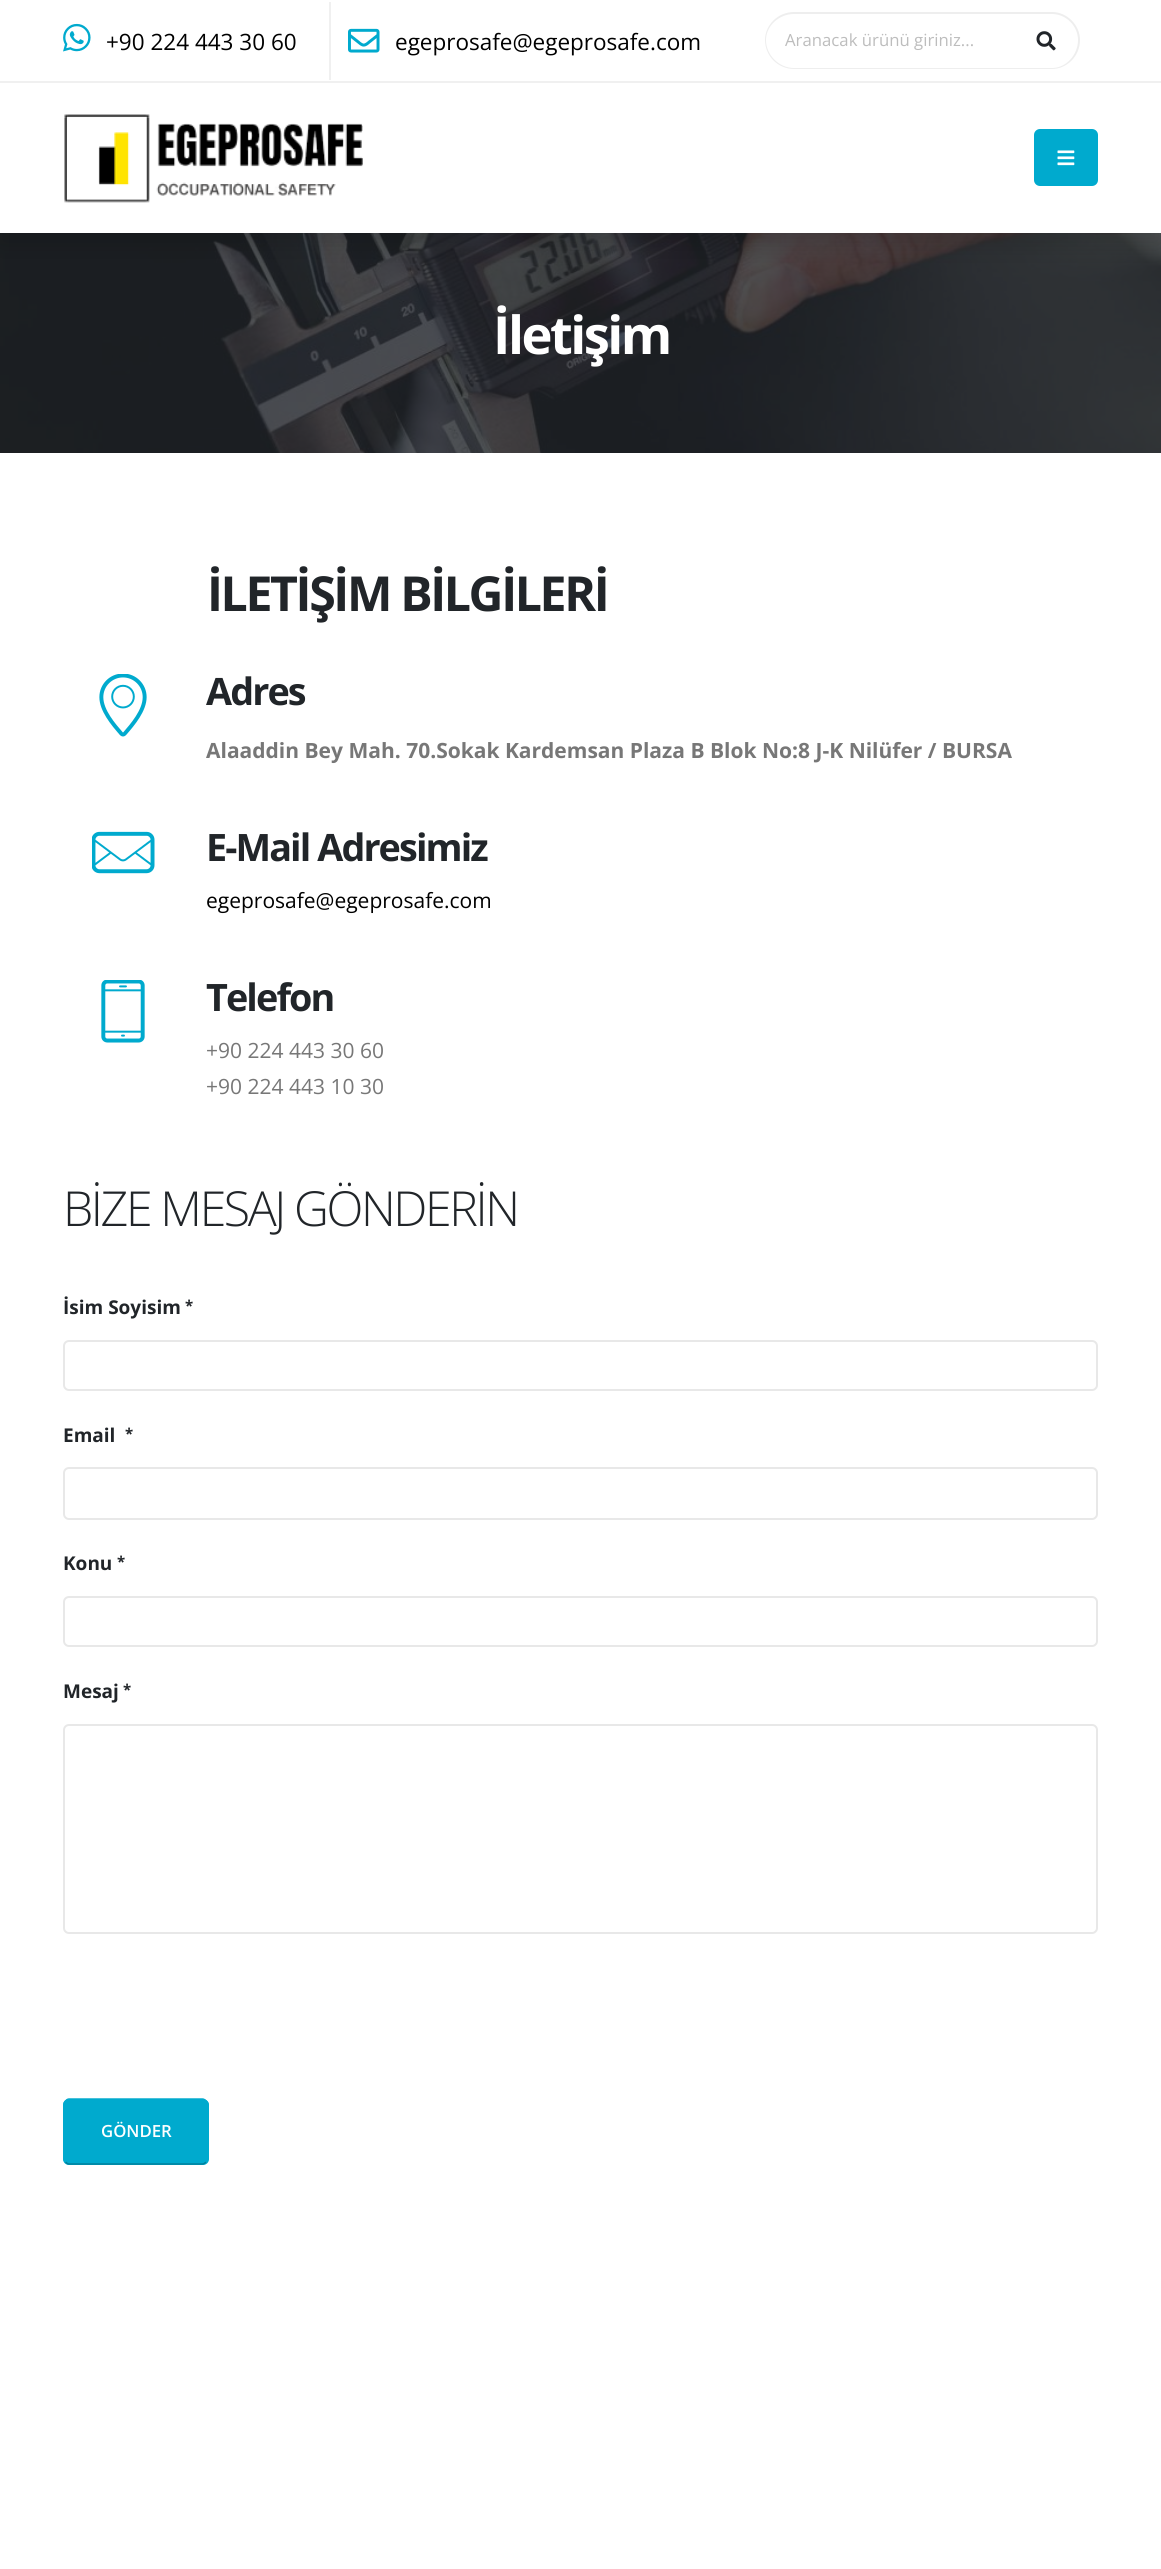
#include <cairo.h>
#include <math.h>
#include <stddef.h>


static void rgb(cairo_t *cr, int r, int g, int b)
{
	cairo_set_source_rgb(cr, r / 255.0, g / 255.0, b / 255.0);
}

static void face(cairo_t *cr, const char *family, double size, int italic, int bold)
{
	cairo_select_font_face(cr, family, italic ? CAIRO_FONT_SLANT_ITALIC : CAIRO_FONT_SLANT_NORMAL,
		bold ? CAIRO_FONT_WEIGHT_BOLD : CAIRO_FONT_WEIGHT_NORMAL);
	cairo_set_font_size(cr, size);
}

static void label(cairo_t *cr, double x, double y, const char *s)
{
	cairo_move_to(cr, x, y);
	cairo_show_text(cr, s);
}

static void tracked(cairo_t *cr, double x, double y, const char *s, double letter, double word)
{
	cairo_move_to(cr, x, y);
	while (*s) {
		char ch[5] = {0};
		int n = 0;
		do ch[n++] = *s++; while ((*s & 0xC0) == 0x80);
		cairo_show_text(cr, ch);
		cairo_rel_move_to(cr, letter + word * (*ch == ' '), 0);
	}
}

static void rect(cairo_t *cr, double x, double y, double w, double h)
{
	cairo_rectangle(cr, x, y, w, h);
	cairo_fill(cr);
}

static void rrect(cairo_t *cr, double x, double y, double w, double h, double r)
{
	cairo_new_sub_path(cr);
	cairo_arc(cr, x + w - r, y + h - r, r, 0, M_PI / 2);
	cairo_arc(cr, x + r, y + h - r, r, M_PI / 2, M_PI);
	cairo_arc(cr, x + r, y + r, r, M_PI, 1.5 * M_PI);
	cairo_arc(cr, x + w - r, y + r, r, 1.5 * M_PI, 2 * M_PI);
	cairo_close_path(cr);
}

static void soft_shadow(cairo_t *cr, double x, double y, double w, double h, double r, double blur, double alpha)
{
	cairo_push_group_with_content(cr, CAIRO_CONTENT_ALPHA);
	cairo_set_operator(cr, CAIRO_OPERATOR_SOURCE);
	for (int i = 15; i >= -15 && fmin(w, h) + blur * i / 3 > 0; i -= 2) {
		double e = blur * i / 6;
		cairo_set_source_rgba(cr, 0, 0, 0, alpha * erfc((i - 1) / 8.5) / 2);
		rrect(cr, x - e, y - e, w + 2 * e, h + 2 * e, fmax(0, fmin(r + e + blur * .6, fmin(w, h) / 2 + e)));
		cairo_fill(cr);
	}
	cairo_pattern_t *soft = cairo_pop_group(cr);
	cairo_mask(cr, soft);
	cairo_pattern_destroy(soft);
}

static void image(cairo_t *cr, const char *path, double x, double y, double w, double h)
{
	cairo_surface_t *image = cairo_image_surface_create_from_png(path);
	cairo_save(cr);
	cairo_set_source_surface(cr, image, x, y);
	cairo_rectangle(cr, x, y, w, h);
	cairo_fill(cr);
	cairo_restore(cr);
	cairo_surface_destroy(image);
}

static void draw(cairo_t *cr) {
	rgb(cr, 255, 255, 255);
	cairo_paint(cr);
	image(cr, "image5.png", 0, 233, 1161, 220);
	rgb(cr, 0, 0, 0);
	soft_shadow(cr, 0, 12, 1161, 233, 0, 12, 0.15);
	rgb(cr, 255, 255, 255);
	rect(cr, 0, 0, 1161, 233);
	rgb(cr, 240, 240, 240);
	rect(cr, 0, 81, 1161, 2);
	rect(cr, 329, 2, 2, 78);
	image(cr, "image0.png", 63, 23, 28, 29);
	face(cr, "Open Sans", 22.5, 0, 0);
	rgb(cr, 0, 0, 0);
	label(cr, 106, 50, "+90 224 443 30 60");
	image(cr, "image1.png", 348, 28, 32, 25);
	label(cr, 395, 50, "egeprosafe@egeprosafe.com");
	rgb(cr, 238, 238, 238);
	cairo_set_fill_rule(cr, CAIRO_FILL_RULE_EVEN_ODD);
	cairo_new_path(cr);
	cairo_move_to(cr, 1014, 12);
	cairo_line_to(cr, 1052, 12);
	cairo_curve_to(cr, 1067, 12, 1080, 25, 1080, 40);
	cairo_curve_to(cr, 1080, 56, 1067, 69, 1052, 69);
	cairo_line_to(cr, 1014, 69);
	cairo_close_path(cr);
	cairo_move_to(cr, 1014, 14);
	cairo_line_to(cr, 1052, 14);
	cairo_curve_to(cr, 1066, 14, 1078, 26, 1078, 40);
	cairo_curve_to(cr, 1078, 55, 1066, 68, 1052, 68);
	cairo_line_to(cr, 1014, 68);
	cairo_close_path(cr);
	cairo_fill(cr);
	cairo_new_path(cr);
	cairo_move_to(cr, 794, 12);
	cairo_line_to(cr, 1016, 12);
	cairo_line_to(cr, 1016, 69);
	cairo_line_to(cr, 794, 69);
	cairo_curve_to(cr, 778, 69, 765, 56, 765, 40);
	cairo_curve_to(cr, 765, 25, 778, 12, 794, 12);
	cairo_close_path(cr);
	cairo_move_to(cr, 794, 14);
	cairo_line_to(cr, 1016, 14);
	cairo_line_to(cr, 1016, 68);
	cairo_line_to(cr, 794, 68);
	cairo_curve_to(cr, 779, 68, 766, 55, 766, 40);
	cairo_curve_to(cr, 766, 26, 779, 14, 794, 14);
	cairo_close_path(cr);
	cairo_fill(cr);
	face(cr, "Open Sans", 16.75, 0, 0);
	rgb(cr, 189, 189, 189);
	label(cr, 785, 46, "Aranacak ürünü giriniz...");
	image(cr, "image2.png", 1036, 31, 20, 20);
	image(cr, "image3.png", 64, 114, 299, 89);
	rgb(cr, 0, 170, 206);
	rrect(cr, 1034, 129, 64, 57, 6);
	cairo_fill(cr);
	image(cr, "image4.png", 1057, 150, 18, 16);
	face(cr, "Open Sans", 52.5, 0, 1);
	rgb(cr, 255, 255, 255);
	tracked(cr, 493, 354, "İletişim", -2.5, 0);
	face(cr, "Open Sans", 48.25, 0, 1);
	rgb(cr, 33, 37, 41);
	tracked(cr, 207, 611, "İLETİŞİM BİLGİLERİ", -2.4, 0);
	image(cr, "image6.png", 99, 674, 48, 63);
	face(cr, "Open Sans", 37.75, 0, 1);
	tracked(cr, 206, 705, "Adres", -1.9, 0);
	face(cr, "Open Sans", 21, 0, 1);
	rgb(cr, 119, 119, 119);
	label(cr, 206, 758, "Alaaddin Bey Mah. 70.Sokak Kardemsan Plaza B Blok No:8 J-K Nilüfer / BURSA");
	image(cr, "image7.png", 92, 831, 63, 43);
	face(cr, "Open Sans", 37.75, 0, 1);
	rgb(cr, 33, 37, 41);
	tracked(cr, 206, 861, "E-Mail Adresimiz", -1.9, 0);
	face(cr, "Open Sans", 21, 0, 0);
	rgb(cr, 0, 0, 0);
	label(cr, 206, 908, "egeprosafe@egeprosafe.com");
	image(cr, "image8.png", 101, 980, 44, 63);
	face(cr, "Open Sans", 37.75, 0, 1);
	rgb(cr, 33, 37, 41);
	tracked(cr, 206, 1011, "Telefon", -1.9, 0);
	face(cr, "Open Sans", 21, 0, 0);
	rgb(cr, 119, 119, 119);
	label(cr, 206, 1058, "+90 224 443 30 60");
	label(cr, 206, 1094, "+90 224 443 10 30");
	face(cr, "Open Sans Light", 48.25, 0, 0);
	rgb(cr, 33, 37, 41);
	tracked(cr, 63, 1226, "BİZE MESAJ GÖNDERİN", -2.4, 0);
	face(cr, "Open Sans", 19, 0, 1);
	label(cr, 63, 1314, "İsim Soyisim");
	face(cr, "Open Sans", 15, 0, 1);
	label(cr, 185, 1311, "*");
	rrect(cr, 64, 1341, 1033, 49, 5);
	rgb(cr, 232, 232, 232);
	cairo_stroke(cr);
	face(cr, "Open Sans", 19, 0, 1);
	rgb(cr, 33, 37, 41);
	label(cr, 63, 1442, "Email");
	face(cr, "Open Sans", 15, 0, 1);
	label(cr, 125, 1439, "*");
	rrect(cr, 64, 1468, 1033, 51, 5);
	rgb(cr, 232, 232, 232);
	cairo_stroke(cr);
	face(cr, "Open Sans", 19, 0, 1);
	rgb(cr, 33, 37, 41);
	label(cr, 63, 1570, "Konu");
	face(cr, "Open Sans", 15, 0, 1);
	label(cr, 117, 1567, "*");
	rrect(cr, 64, 1597, 1033, 49, 5);
	rgb(cr, 232, 232, 232);
	cairo_stroke(cr);
	face(cr, "Open Sans", 19, 0, 1);
	rgb(cr, 33, 37, 41);
	label(cr, 63, 1698, "Mesaj");
	face(cr, "Open Sans", 15, 0, 1);
	label(cr, 123, 1695, "*");
	rrect(cr, 64, 1725, 1033, 208, 5);
	rgb(cr, 232, 232, 232);
	cairo_stroke(cr);
	rgb(cr, 0, 170, 206);
	rrect(cr, 63, 2099, 146, 66, 6);
	cairo_fill(cr);
	cairo_new_path(cr);
	cairo_move_to(cr, 206, 2162);
	cairo_curve_to(cr, 205, 2163, 204, 2164, 202.5, 2164);
	cairo_line_to(cr, 69, 2164);
	cairo_curve_to(cr, 67.5, 2164, 66.5, 2163, 65.5, 2162);
	rgb(cr, 0, 128, 155);
	cairo_set_line_width(cr, 1.5);
	cairo_stroke(cr);
	cairo_new_path(cr);
	cairo_move_to(cr, 65.5, 2162);
	cairo_curve_to(cr, 64.5, 2161, 64, 2160, 64, 2158.5);
	cairo_line_to(cr, 64, 2104.5);
	cairo_curve_to(cr, 64, 2103, 64.5, 2102, 65.5, 2101);
	cairo_curve_to(cr, 66.5, 2100, 67.5, 2099, 69, 2099);
	cairo_line_to(cr, 202.5, 2099);
	cairo_curve_to(cr, 204, 2099, 205, 2100, 206, 2101);
	cairo_curve_to(cr, 207, 2102, 208, 2103, 208, 2104.5);
	cairo_line_to(cr, 208, 2158.5);
	cairo_curve_to(cr, 208, 2160, 207, 2161, 206, 2162);
	rgb(cr, 0, 170, 206);
	cairo_stroke(cr);
	face(cr, "Open Sans SemiBold", 16.75, 0, 0);
	rgb(cr, 255, 255, 255);
	label(cr, 101, 2137, "GÖNDER");
}

int main(void) {
	cairo_surface_t *surface = cairo_image_surface_create(CAIRO_FORMAT_RGB24, 1161, 2569);
	cairo_t *cr = cairo_create(surface);
	cairo_font_options_t *options = cairo_font_options_create();
	cairo_font_options_set_hint_metrics(options, CAIRO_HINT_METRICS_OFF);
	cairo_font_options_set_hint_style(options, CAIRO_HINT_STYLE_NONE);
	cairo_set_font_options(cr, options);
	cairo_set_miter_limit(cr, 4);
	draw(cr);
	cairo_surface_write_to_png(surface, "render.png");
	cairo_font_options_destroy(options);
	cairo_destroy(cr);
	cairo_surface_destroy(surface);
	return 0;
}
